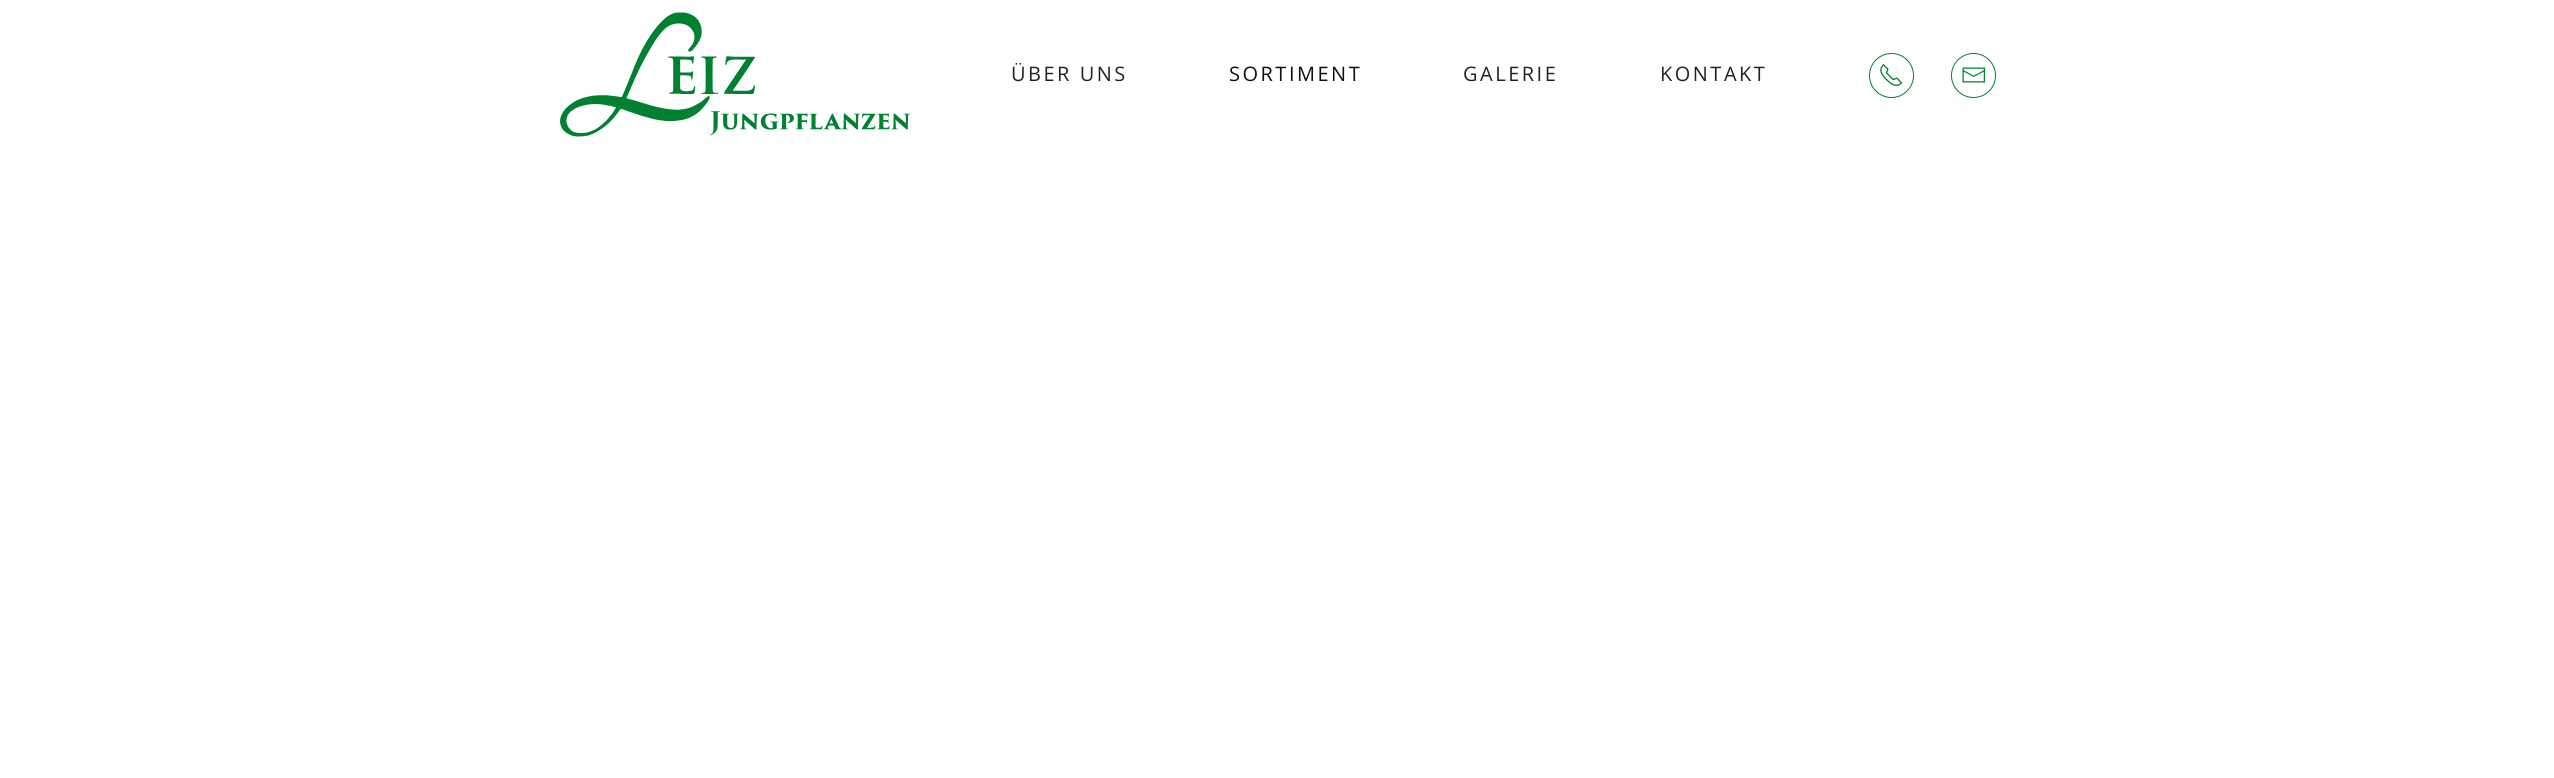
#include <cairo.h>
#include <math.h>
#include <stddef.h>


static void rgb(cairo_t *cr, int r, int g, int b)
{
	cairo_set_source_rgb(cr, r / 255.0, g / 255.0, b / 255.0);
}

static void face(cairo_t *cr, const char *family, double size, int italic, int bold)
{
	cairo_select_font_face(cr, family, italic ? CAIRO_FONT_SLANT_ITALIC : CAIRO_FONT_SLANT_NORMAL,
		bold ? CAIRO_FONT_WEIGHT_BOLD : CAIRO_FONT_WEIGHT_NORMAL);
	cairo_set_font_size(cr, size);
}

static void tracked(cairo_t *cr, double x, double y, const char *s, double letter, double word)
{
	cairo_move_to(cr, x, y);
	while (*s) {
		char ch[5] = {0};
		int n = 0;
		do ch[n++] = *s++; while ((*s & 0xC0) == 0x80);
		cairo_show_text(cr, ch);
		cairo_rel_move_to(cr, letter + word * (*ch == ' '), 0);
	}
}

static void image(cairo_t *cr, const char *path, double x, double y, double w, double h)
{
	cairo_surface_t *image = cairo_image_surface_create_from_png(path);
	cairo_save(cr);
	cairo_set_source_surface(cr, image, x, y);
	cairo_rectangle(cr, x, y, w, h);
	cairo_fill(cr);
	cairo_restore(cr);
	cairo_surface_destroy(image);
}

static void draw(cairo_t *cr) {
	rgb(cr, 255, 255, 255);
	cairo_paint(cr);
	image(cr, "image0.png", 560, 12, 350, 125);
	face(cr, "Open Sans", 20, 0, 0);
	rgb(cr, 34, 34, 34);
	tracked(cr, 1011, 81, "ÜBER UNS", 2.5, 0);
	rgb(cr, 16, 16, 16);
	tracked(cr, 1229, 81, "SORTIMENT", 2.5, 0);
	rgb(cr, 34, 34, 34);
	tracked(cr, 1463, 81, "GALERIE", 2.5, 0);
	tracked(cr, 1660, 81, "KONTAKT", 2.5, 0);
	cairo_new_path(cr);
	cairo_arc(cr, 1891.5, 75.5, 22, 0, 2 * M_PI);
	rgb(cr, 0, 128, 49);
	cairo_set_line_width(cr, 1);
	cairo_stroke(cr);
	image(cr, "image1.png", 1880, 64, 23, 22);
	cairo_arc(cr, 1973.5, 75.5, 22, 0, 2 * M_PI);
	cairo_stroke(cr);
	image(cr, "image2.png", 1962, 67, 23, 16);
}

int main(void) {
	cairo_surface_t *surface = cairo_image_surface_create(CAIRO_FORMAT_RGB24, 2554, 778);
	cairo_t *cr = cairo_create(surface);
	cairo_font_options_t *options = cairo_font_options_create();
	cairo_font_options_set_hint_metrics(options, CAIRO_HINT_METRICS_OFF);
	cairo_font_options_set_hint_style(options, CAIRO_HINT_STYLE_NONE);
	cairo_set_font_options(cr, options);
	cairo_set_miter_limit(cr, 4);
	draw(cr);
	cairo_surface_write_to_png(surface, "render.png");
	cairo_font_options_destroy(options);
	cairo_destroy(cr);
	cairo_surface_destroy(surface);
	return 0;
}
